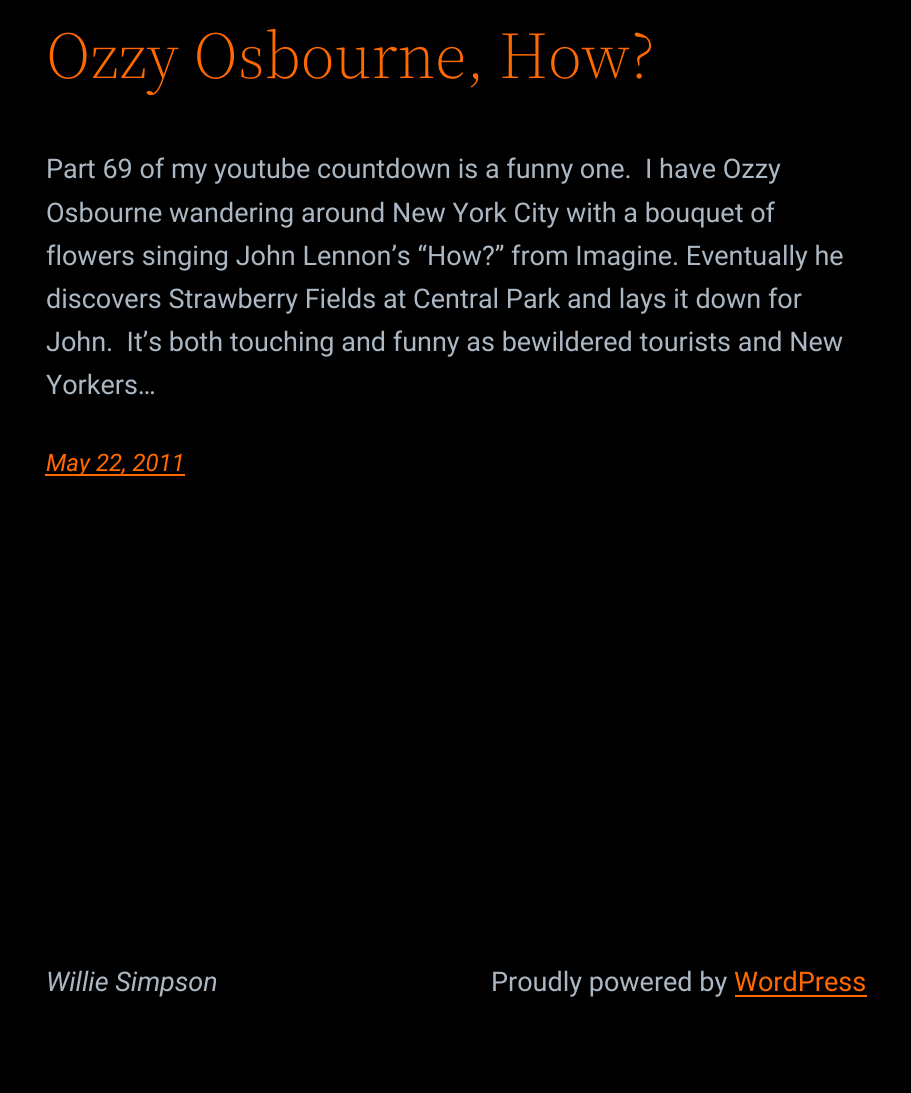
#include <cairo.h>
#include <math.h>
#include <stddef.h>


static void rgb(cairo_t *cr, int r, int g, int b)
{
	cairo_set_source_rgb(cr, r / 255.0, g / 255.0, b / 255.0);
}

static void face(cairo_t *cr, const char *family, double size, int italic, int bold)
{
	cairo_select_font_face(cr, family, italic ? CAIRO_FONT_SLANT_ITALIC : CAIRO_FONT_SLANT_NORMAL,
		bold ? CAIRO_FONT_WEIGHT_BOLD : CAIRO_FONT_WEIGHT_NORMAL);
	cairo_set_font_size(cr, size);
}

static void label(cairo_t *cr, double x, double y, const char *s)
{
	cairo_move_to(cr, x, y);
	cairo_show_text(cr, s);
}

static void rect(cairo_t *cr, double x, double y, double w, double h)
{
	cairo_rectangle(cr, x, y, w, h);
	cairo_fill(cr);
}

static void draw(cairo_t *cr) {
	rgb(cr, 0, 0, 0);
	cairo_paint(cr);
	face(cr, "Source Serif 4 Light", 66, 0, 0);
	rgb(cr, 255, 105, 0);
	label(cr, 46, 78, "Ozzy Osbourne, How?");
	face(cr, "Roboto", 27, 0, 0);
	rgb(cr, 171, 184, 195);
	label(cr, 46, 178, "Part 69 of my youtube countdown is a funny one.  I have Ozzy");
	label(cr, 46, 222, "Osbourne wandering around New York City with a bouquet of");
	label(cr, 46, 265, "flowers singing John Lennon’s “How?” from Imagine. Eventually he");
	label(cr, 46, 308, "discovers Strawberry Fields at Central Park and lays it down for");
	label(cr, 46, 351, "John.  It’s both touching and funny as bewildered tourists and New");
	label(cr, 46, 394, "Yorkers…");
	rgb(cr, 255, 105, 0);
	rect(cr, 45, 474, 140, 2);
	face(cr, "Roboto", 24, 1, 0);
	label(cr, 46, 471, "May 22, 2011");
	face(cr, "Roboto", 27, 1, 0);
	rgb(cr, 171, 184, 195);
	label(cr, 46, 991, "Willie Simpson");
	face(cr, "Roboto", 27, 0, 0);
	label(cr, 491, 991, "Proudly powered by");
	rgb(cr, 255, 105, 0);
	label(cr, 734, 991, "WordPress");
	rect(cr, 735, 995, 132, 2);
}

int main(void) {
	cairo_surface_t *surface = cairo_image_surface_create(CAIRO_FORMAT_RGB24, 911, 1093);
	cairo_t *cr = cairo_create(surface);
	cairo_font_options_t *options = cairo_font_options_create();
	cairo_font_options_set_hint_metrics(options, CAIRO_HINT_METRICS_OFF);
	cairo_font_options_set_hint_style(options, CAIRO_HINT_STYLE_NONE);
	cairo_set_font_options(cr, options);
	cairo_set_miter_limit(cr, 4);
	draw(cr);
	cairo_surface_write_to_png(surface, "render.png");
	cairo_font_options_destroy(options);
	cairo_destroy(cr);
	cairo_surface_destroy(surface);
	return 0;
}
